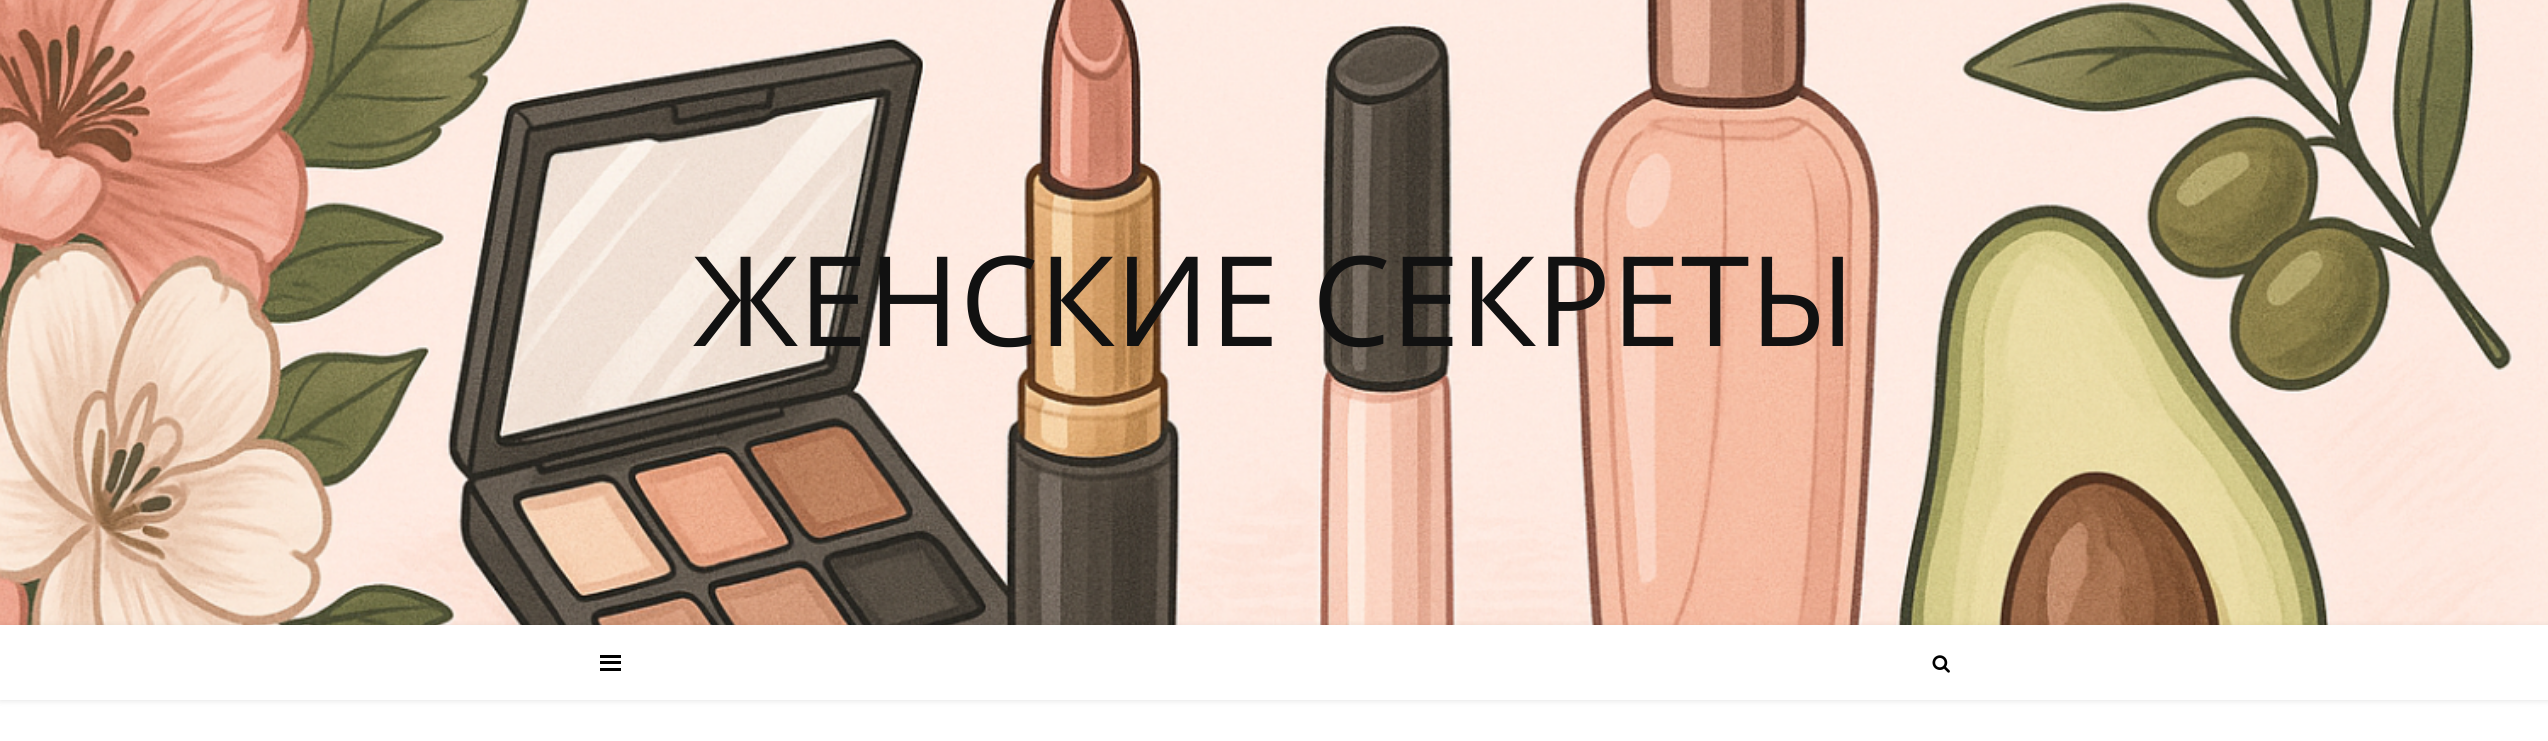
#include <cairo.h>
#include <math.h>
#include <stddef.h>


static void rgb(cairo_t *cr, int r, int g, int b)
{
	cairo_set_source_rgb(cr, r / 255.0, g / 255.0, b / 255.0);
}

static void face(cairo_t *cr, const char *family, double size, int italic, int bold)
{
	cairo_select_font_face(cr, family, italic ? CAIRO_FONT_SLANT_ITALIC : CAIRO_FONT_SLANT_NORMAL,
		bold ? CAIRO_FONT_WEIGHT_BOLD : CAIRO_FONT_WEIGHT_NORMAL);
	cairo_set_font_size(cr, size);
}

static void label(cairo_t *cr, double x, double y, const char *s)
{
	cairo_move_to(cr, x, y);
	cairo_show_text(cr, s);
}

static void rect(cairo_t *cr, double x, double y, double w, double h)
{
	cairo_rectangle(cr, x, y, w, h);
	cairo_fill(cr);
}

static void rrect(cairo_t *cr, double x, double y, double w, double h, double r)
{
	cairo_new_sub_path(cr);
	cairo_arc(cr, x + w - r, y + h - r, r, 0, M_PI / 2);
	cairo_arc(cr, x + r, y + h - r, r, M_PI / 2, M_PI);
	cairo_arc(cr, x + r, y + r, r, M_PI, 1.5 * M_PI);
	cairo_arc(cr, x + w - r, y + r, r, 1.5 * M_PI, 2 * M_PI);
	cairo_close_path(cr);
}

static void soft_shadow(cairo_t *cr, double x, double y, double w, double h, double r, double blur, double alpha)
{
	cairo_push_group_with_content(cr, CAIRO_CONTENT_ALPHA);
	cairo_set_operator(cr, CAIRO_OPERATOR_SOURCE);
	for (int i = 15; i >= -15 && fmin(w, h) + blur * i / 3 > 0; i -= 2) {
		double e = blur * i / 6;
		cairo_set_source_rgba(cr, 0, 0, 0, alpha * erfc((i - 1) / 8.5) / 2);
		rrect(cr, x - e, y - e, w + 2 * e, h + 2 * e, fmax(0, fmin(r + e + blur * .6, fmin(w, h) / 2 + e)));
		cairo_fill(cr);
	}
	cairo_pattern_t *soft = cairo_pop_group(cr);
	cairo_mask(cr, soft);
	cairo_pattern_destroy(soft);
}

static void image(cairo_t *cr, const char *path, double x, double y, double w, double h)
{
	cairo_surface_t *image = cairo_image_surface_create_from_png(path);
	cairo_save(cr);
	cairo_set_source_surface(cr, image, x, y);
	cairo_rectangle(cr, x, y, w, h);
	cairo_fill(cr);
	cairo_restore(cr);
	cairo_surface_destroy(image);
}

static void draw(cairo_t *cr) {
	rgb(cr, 255, 255, 255);
	cairo_paint(cr);
	image(cr, "image0.png", 0, 0, 2548, 625);
	face(cr, "Open Sans", 125, 0, 0);
	rgb(cr, 17, 17, 17);
	label(cr, 693, 346, "ЖЕНСКИЕ СЕКРЕТЫ");
	cairo_save(cr);
	cairo_set_fill_rule(cr, CAIRO_FILL_RULE_EVEN_ODD);
	cairo_new_path(cr);
	cairo_move_to(cr, 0, 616);
	cairo_line_to(cr, 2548, 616);
	cairo_line_to(cr, 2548, 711);
	cairo_line_to(cr, 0, 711);
	cairo_close_path(cr);
	cairo_move_to(cr, 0, 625);
	cairo_line_to(cr, 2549, 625);
	cairo_line_to(cr, 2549, 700);
	cairo_line_to(cr, 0, 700);
	cairo_close_path(cr);
	cairo_clip(cr);
	rgb(cr, 0, 0, 0);
	soft_shadow(cr, 0, 626, 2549, 75, 0, 3, 0.1);
	cairo_restore(cr);
	rgb(cr, 0, 0, 0);
	rect(cr, 600, 655, 21, 3);
	rect(cr, 600, 661, 21, 3);
	rect(cr, 600, 668, 21, 3);
	image(cr, "image1.png", 1932, 655, 18, 18);
}

int main(void) {
	cairo_surface_t *surface = cairo_image_surface_create(CAIRO_FORMAT_RGB24, 2548, 741);
	cairo_t *cr = cairo_create(surface);
	cairo_font_options_t *options = cairo_font_options_create();
	cairo_font_options_set_hint_metrics(options, CAIRO_HINT_METRICS_OFF);
	cairo_font_options_set_hint_style(options, CAIRO_HINT_STYLE_NONE);
	cairo_set_font_options(cr, options);
	cairo_set_miter_limit(cr, 4);
	draw(cr);
	cairo_surface_write_to_png(surface, "render.png");
	cairo_font_options_destroy(options);
	cairo_destroy(cr);
	cairo_surface_destroy(surface);
	return 0;
}
